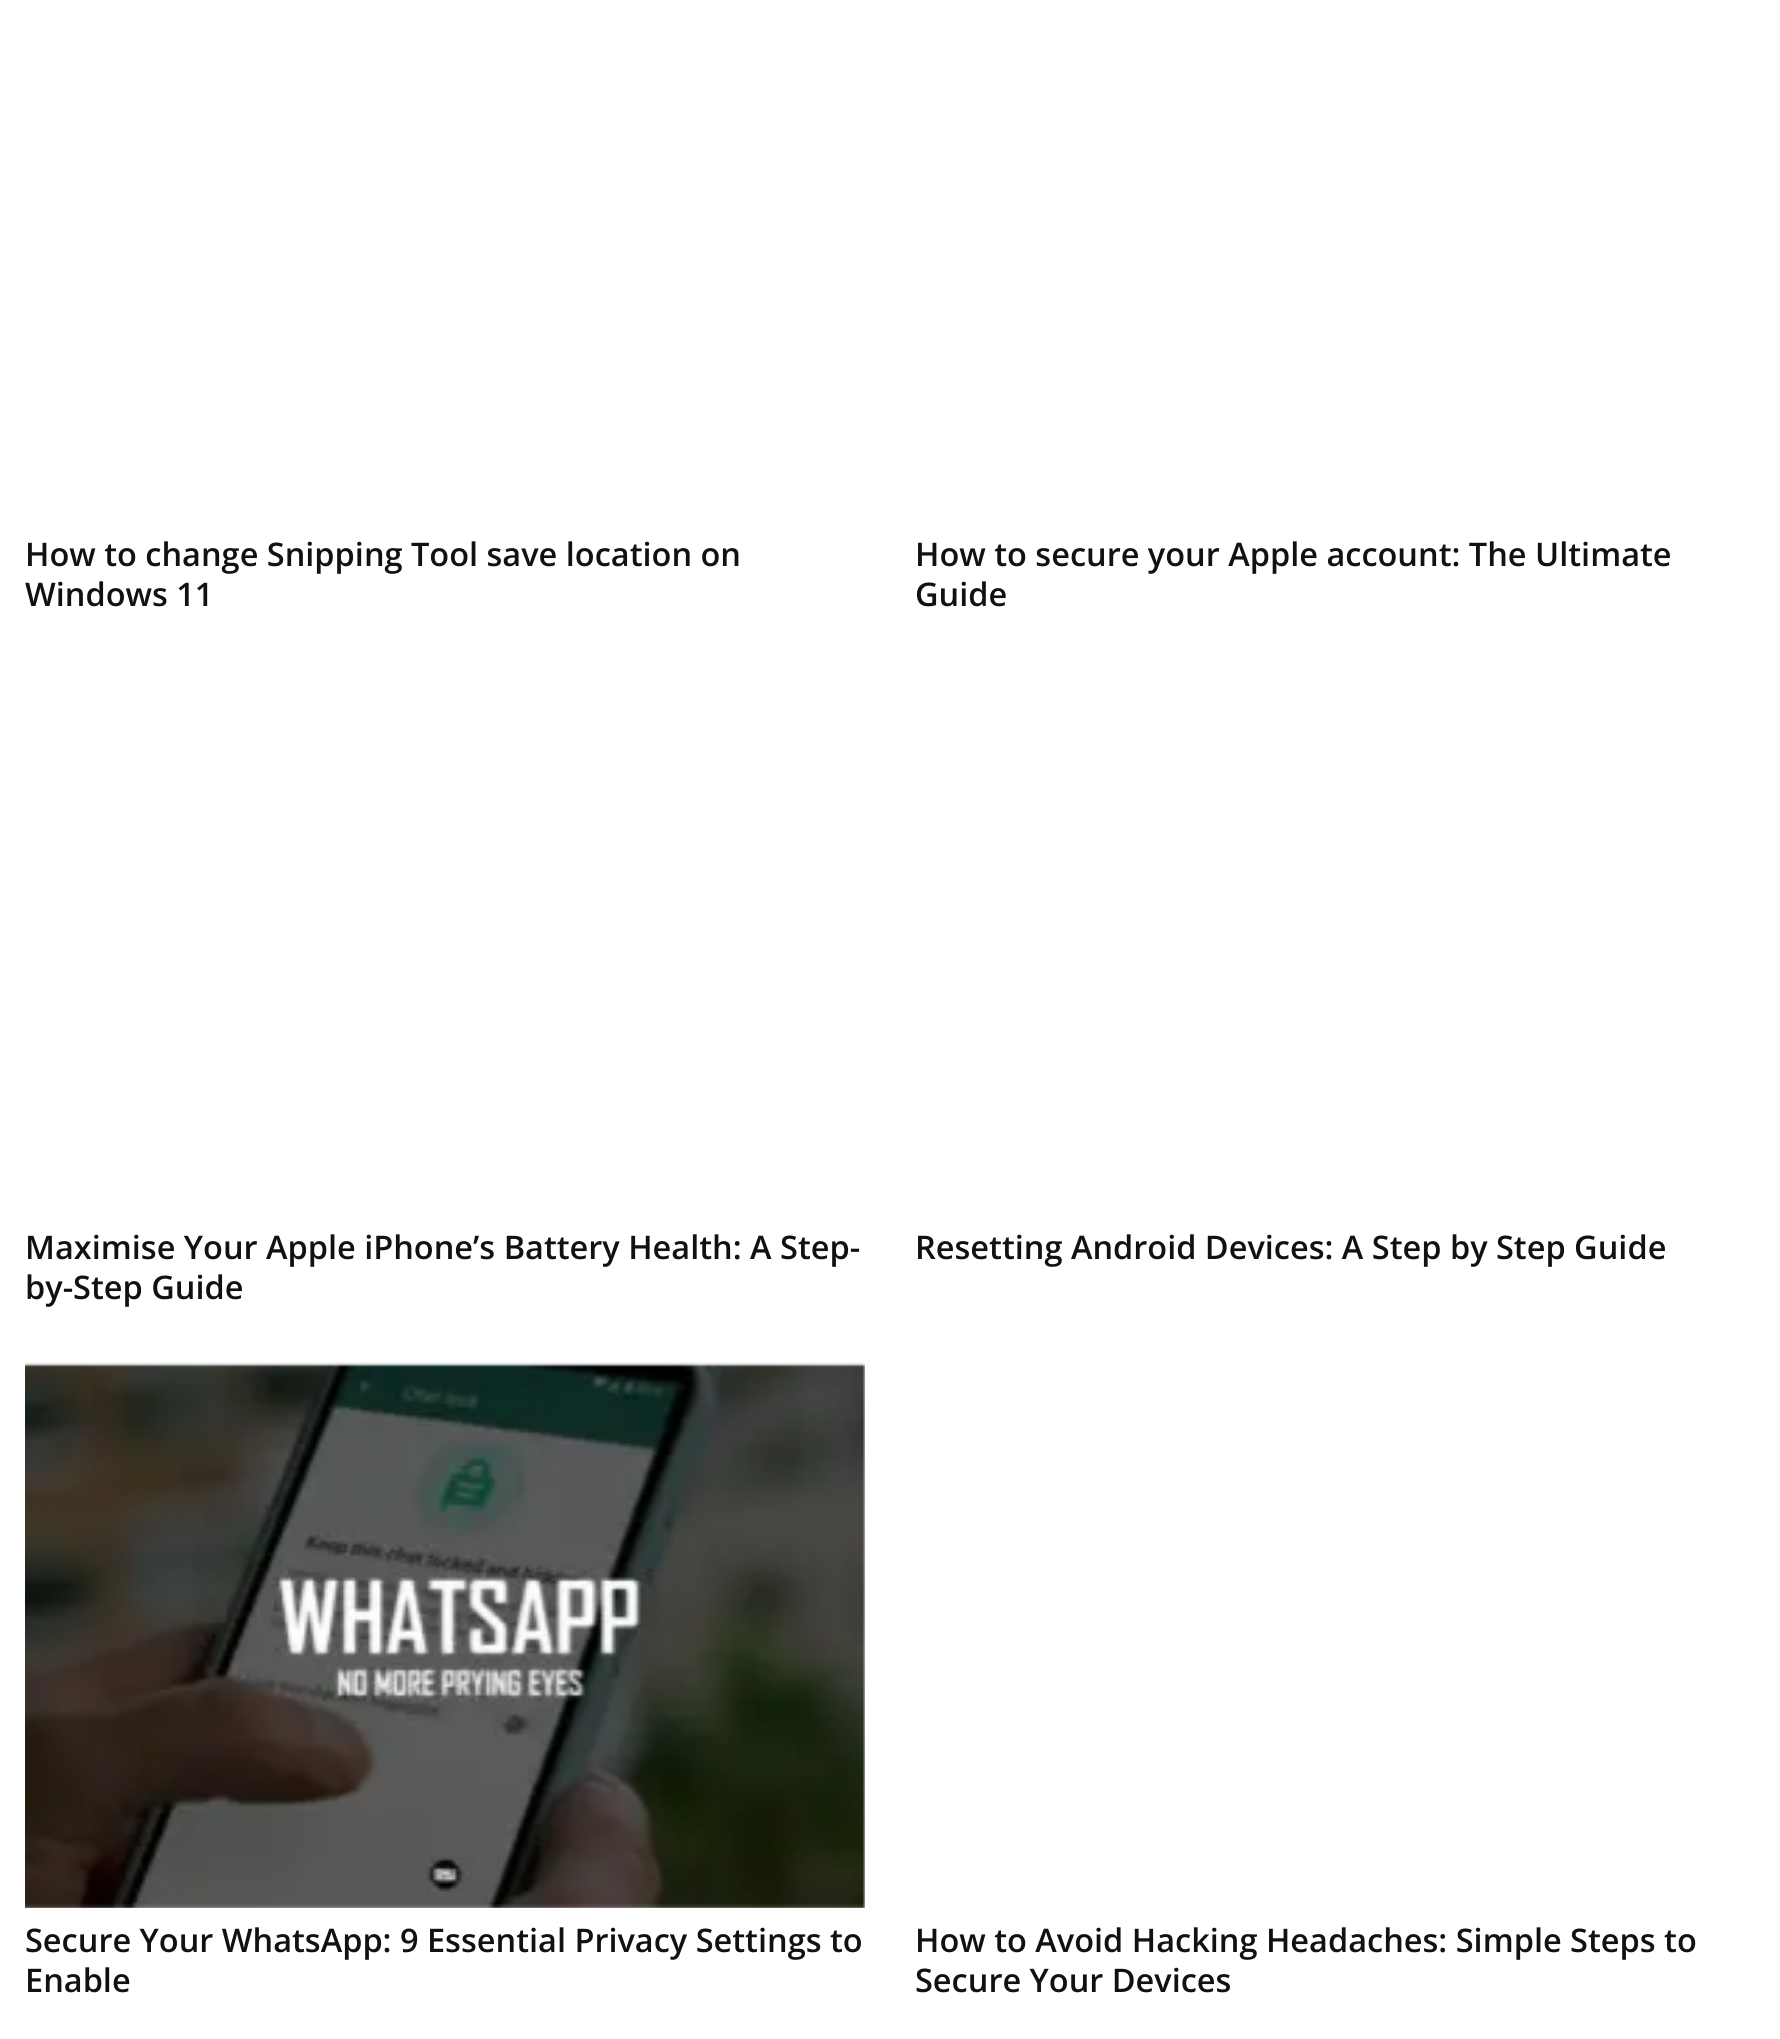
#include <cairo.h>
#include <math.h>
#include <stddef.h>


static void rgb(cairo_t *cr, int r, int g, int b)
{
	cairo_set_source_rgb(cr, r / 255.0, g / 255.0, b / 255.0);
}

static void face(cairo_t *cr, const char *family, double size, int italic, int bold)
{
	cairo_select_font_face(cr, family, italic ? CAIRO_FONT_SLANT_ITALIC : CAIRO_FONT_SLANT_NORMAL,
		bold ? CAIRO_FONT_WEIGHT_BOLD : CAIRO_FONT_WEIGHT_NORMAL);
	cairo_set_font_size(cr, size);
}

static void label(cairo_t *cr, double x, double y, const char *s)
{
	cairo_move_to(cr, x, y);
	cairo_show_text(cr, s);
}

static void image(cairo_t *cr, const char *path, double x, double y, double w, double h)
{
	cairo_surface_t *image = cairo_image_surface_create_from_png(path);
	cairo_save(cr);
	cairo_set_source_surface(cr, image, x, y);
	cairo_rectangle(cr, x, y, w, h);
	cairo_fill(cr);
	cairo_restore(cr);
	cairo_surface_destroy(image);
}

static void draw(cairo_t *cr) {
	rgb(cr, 255, 255, 255);
	cairo_paint(cr);
	face(cr, "Open Sans SemiBold", 32.5, 0, 0);
	rgb(cr, 17, 17, 17);
	label(cr, 25, 566, "How to change Snipping Tool save location on");
	label(cr, 25, 606, "Windows 11");
	label(cr, 915, 566, "How to secure your Apple account: The Ultimate");
	label(cr, 915, 606, "Guide");
	label(cr, 25, 1259, "Maximise Your Apple iPhone’s Battery Health: A Step-");
	label(cr, 25, 1299, "by-Step Guide");
	label(cr, 915, 1259, "Resetting Android Devices: A Step by Step Guide");
	image(cr, "image0.png", 25, 1362, 840, 546);
	label(cr, 25, 1952, "Secure Your WhatsApp: 9 Essential Privacy Settings to");
	label(cr, 25, 1992, "Enable");
	label(cr, 915, 1952, "How to Avoid Hacking Headaches: Simple Steps to");
	label(cr, 915, 1992, "Secure Your Devices");
}

int main(void) {
	cairo_surface_t *surface = cairo_image_surface_create(CAIRO_FORMAT_RGB24, 1780, 2039);
	cairo_t *cr = cairo_create(surface);
	cairo_font_options_t *options = cairo_font_options_create();
	cairo_font_options_set_hint_metrics(options, CAIRO_HINT_METRICS_OFF);
	cairo_font_options_set_hint_style(options, CAIRO_HINT_STYLE_NONE);
	cairo_set_font_options(cr, options);
	cairo_set_miter_limit(cr, 4);
	draw(cr);
	cairo_surface_write_to_png(surface, "render.png");
	cairo_font_options_destroy(options);
	cairo_destroy(cr);
	cairo_surface_destroy(surface);
	return 0;
}
